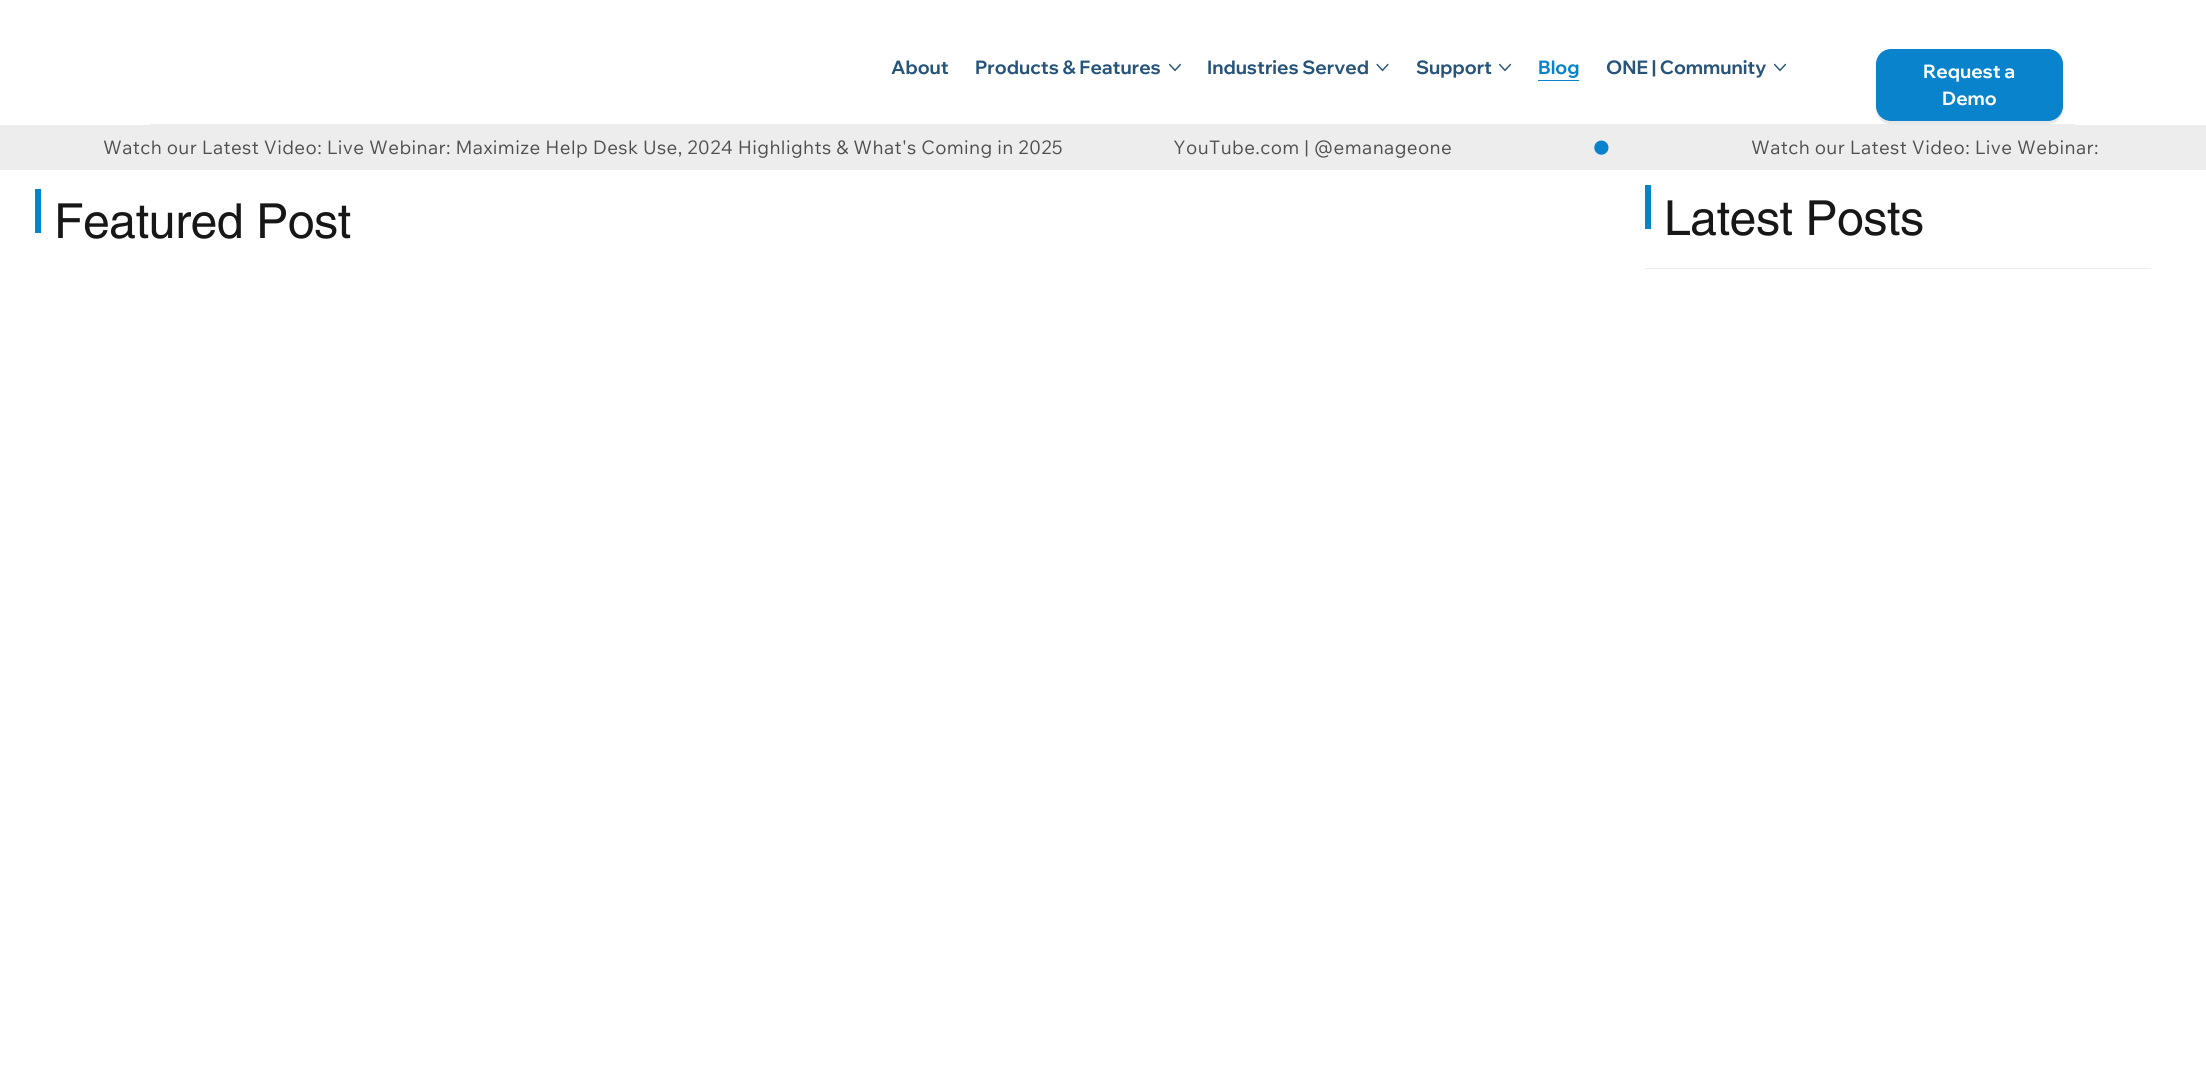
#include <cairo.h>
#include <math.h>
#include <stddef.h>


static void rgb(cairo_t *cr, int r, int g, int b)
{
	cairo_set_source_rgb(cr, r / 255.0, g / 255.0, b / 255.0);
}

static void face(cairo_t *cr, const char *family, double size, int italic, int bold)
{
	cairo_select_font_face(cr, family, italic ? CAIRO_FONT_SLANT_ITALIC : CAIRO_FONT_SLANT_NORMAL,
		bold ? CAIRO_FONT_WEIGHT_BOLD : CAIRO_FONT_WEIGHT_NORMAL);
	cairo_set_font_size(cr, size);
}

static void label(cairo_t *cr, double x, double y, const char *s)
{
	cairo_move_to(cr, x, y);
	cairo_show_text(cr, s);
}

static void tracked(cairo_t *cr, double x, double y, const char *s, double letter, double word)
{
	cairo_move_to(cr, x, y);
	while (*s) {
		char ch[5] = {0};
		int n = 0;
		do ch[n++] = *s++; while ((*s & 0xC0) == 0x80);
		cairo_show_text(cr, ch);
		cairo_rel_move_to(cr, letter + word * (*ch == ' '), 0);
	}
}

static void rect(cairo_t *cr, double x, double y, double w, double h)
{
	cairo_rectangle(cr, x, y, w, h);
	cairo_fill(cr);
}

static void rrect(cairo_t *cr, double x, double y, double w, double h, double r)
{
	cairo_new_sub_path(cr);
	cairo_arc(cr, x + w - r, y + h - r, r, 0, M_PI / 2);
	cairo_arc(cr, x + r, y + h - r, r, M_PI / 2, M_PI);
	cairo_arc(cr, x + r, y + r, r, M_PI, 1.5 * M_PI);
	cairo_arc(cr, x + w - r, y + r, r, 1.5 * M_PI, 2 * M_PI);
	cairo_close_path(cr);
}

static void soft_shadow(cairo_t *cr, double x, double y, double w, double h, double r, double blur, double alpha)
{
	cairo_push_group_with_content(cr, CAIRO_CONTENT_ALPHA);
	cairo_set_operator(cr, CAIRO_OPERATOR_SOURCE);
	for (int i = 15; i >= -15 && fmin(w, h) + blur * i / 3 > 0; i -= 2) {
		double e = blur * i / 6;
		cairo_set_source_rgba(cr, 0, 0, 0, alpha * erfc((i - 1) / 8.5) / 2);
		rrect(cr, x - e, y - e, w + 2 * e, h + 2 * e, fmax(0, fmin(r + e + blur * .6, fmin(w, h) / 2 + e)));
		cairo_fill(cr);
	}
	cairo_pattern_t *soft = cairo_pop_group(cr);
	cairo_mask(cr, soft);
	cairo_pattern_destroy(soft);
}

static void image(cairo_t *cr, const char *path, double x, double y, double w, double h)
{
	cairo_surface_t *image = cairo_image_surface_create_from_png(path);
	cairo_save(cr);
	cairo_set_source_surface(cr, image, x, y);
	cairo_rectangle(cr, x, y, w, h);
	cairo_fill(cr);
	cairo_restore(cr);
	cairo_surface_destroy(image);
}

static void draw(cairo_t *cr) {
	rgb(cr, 255, 255, 255);
	cairo_paint(cr);
	face(cr, "Wix Madefor Display", 18.75, 0, 1);
	rgb(cr, 38, 84, 123);
	label(cr, 891, 74, "About");
	label(cr, 975, 74, "Products & Features");
	image(cr, "image0.png", 1169, 63, 12, 9);
	label(cr, 1207, 74, "Industries Served");
	image(cr, "image1.png", 1376, 63, 13, 9);
	label(cr, 1416, 74, "Support");
	image(cr, "image0.png", 1499, 63, 12, 9);
	rgb(cr, 8, 131, 204);
	label(cr, 1538, 74, "Blog");
	rect(cr, 1538, 80, 41, 1);
	rgb(cr, 38, 84, 123);
	label(cr, 1606, 74, "ONE | Community");
	image(cr, "image0.png", 1774, 63, 12, 9);
	rgb(cr, 237, 237, 237);
	rect(cr, 150, 124, 1925, 1);
	rect(cr, 0, 125, 2206, 45);
	rgb(cr, 0, 0, 0);
	soft_shadow(cr, 1876, 51, 187, 73, 15, 0.5, 0.1);
	rgb(cr, 8, 131, 204);
	rrect(cr, 1876, 49, 187, 72, 15);
	cairo_fill(cr);
	rgb(cr, 255, 255, 255);
	label(cr, 1923, 78, "Request a");
	label(cr, 1942, 105, "Demo");
	face(cr, "Wix Madefor Text", 18.75, 0, 0);
	rgb(cr, 78, 78, 78);
	tracked(cr, 103, 154, "Watch our Latest Video: Live Webinar: Maximize Help Desk Use, 2024 Highlights & What's Coming in 2025                        YouTube.com | @emanageone", 0.38, 0);
	image(cr, "image2.png", 1594, 140, 15, 15);
	tracked(cr, 1751, 154, "Watch our Latest Video: Live Webinar:", 0.38, 0);
	rgb(cr, 2, 133, 200);
	rect(cr, 35, 189, 6, 44);
	face(cr, "helvetica", 48.25, 0, 0);
	rgb(cr, 23, 23, 23);
	tracked(cr, 54, 238, "Featured Post", -0.5, 0);
	rgb(cr, 2, 133, 200);
	rect(cr, 1645, 185, 6, 44);
	rgb(cr, 23, 23, 23);
	tracked(cr, 1664, 235, "Latest Posts", -0.5, 0);
	rgb(cr, 237, 237, 237);
	rect(cr, 1645, 268, 506, 1);
}

int main(void) {
	cairo_surface_t *surface = cairo_image_surface_create(CAIRO_FORMAT_RGB24, 2206, 1089);
	cairo_t *cr = cairo_create(surface);
	cairo_font_options_t *options = cairo_font_options_create();
	cairo_font_options_set_hint_metrics(options, CAIRO_HINT_METRICS_OFF);
	cairo_font_options_set_hint_style(options, CAIRO_HINT_STYLE_NONE);
	cairo_set_font_options(cr, options);
	cairo_set_miter_limit(cr, 4);
	draw(cr);
	cairo_surface_write_to_png(surface, "render.png");
	cairo_font_options_destroy(options);
	cairo_destroy(cr);
	cairo_surface_destroy(surface);
	return 0;
}
